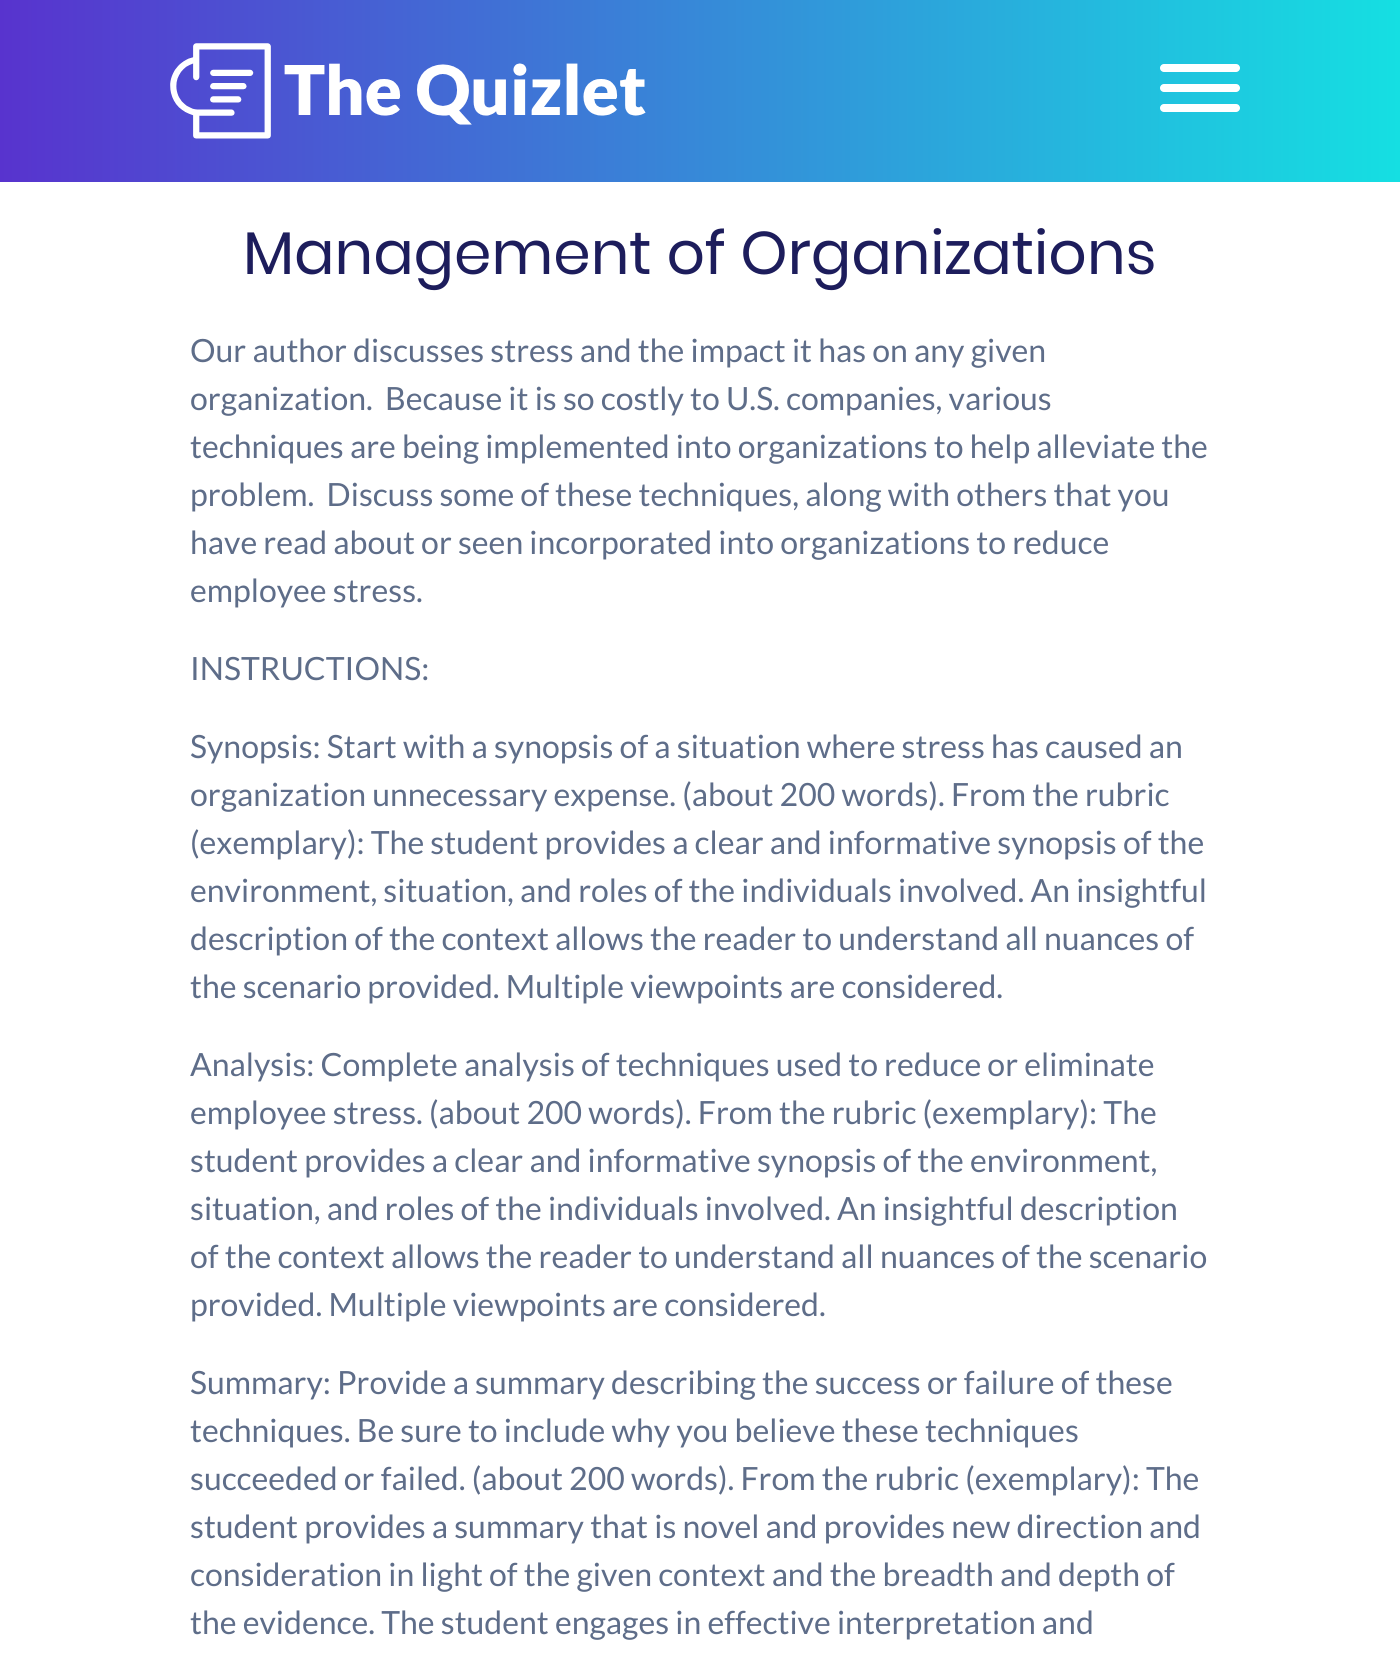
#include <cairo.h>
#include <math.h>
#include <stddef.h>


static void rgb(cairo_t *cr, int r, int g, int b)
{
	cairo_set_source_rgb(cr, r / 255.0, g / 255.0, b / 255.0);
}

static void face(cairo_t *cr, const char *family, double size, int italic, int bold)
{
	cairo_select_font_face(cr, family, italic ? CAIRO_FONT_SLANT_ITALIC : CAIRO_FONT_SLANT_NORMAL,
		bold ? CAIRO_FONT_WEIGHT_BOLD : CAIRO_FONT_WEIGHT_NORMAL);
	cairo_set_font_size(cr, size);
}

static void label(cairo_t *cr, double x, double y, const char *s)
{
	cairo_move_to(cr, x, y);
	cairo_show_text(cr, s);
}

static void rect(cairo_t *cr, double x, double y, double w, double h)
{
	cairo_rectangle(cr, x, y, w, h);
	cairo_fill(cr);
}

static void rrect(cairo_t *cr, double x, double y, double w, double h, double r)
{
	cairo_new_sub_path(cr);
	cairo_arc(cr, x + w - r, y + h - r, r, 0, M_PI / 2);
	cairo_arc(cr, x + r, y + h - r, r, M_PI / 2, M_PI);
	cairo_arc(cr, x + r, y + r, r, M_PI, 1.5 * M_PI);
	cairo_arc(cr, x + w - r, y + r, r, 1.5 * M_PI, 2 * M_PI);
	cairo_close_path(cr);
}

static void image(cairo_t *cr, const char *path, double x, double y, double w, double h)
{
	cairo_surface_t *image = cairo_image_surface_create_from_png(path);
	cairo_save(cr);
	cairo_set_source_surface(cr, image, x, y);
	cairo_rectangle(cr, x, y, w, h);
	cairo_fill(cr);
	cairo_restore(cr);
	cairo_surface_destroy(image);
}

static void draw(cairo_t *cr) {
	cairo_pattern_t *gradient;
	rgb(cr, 255, 255, 255);
	cairo_paint(cr);
	gradient = cairo_pattern_create_linear(0, 91, 1400, 91);
	cairo_pattern_add_color_stop_rgba(gradient, 0, 0.345, 0.2, 0.808, 1);
	cairo_pattern_add_color_stop_rgba(gradient, 1, 0.082, 0.875, 0.886, 1);
	cairo_set_source(cr, gradient);
	cairo_pattern_destroy(gradient);
	rect(cr, 0, 0, 1400, 182);
	image(cr, "image0.png", 170, 43, 476, 96);
	rgb(cr, 255, 255, 255);
	rrect(cr, 1160, 64, 80, 8, 4);
	cairo_fill(cr);
	rrect(cr, 1160, 84, 80, 8, 4);
	cairo_fill(cr);
	rrect(cr, 1160, 104, 80, 8, 4);
	cairo_fill(cr);
	face(cr, "Poppins", 60, 0, 0);
	rgb(cr, 29, 29, 92);
	label(cr, 243, 274, "Management of Organizations");
	face(cr, "Lato", 32, 0, 0);
	rgb(cr, 94, 109, 137);
	label(cr, 190, 362, "Our author discusses stress and the impact it has on any given");
	label(cr, 190, 410, "organization.  Because it is so costly to U.S. companies, various");
	label(cr, 190, 458, "techniques are being implemented into organizations to help alleviate the");
	label(cr, 190, 506, "problem.  Discuss some of these techniques, along with others that you");
	label(cr, 190, 554, "have read about or seen incorporated into organizations to reduce");
	label(cr, 190, 602, "employee stress.");
	label(cr, 190, 680, "INSTRUCTIONS:");
	label(cr, 190, 758, "Synopsis: Start with a synopsis of a situation where stress has caused an");
	label(cr, 190, 806, "organization unnecessary expense. (about 200 words). From the rubric");
	label(cr, 190, 854, "(exemplary): The student provides a clear and informative synopsis of the");
	label(cr, 190, 902, "environment, situation, and roles of the individuals involved. An insightful");
	label(cr, 190, 950, "description of the context allows the reader to understand all nuances of");
	label(cr, 190, 998, "the scenario provided. Multiple viewpoints are considered.");
	label(cr, 190, 1076, "Analysis: Complete analysis of techniques used to reduce or eliminate");
	label(cr, 190, 1124, "employee stress. (about 200 words). From the rubric (exemplary): The");
	label(cr, 190, 1172, "student provides a clear and informative synopsis of the environment,");
	label(cr, 190, 1220, "situation, and roles of the individuals involved. An insightful description");
	label(cr, 190, 1268, "of the context allows the reader to understand all nuances of the scenario");
	label(cr, 190, 1316, "provided. Multiple viewpoints are considered.");
	label(cr, 190, 1394, "Summary: Provide a summary describing the success or failure of these");
	label(cr, 190, 1442, "techniques. Be sure to include why you believe these techniques");
	label(cr, 190, 1490, "succeeded or failed. (about 200 words). From the rubric (exemplary): The");
	label(cr, 190, 1538, "student provides a summary that is novel and provides new direction and");
	label(cr, 190, 1586, "consideration in light of the given context and the breadth and depth of");
	label(cr, 190, 1634, "the evidence. The student engages in effective interpretation and");
}

int main(void) {
	cairo_surface_t *surface = cairo_image_surface_create(CAIRO_FORMAT_RGB24, 1400, 1669);
	cairo_t *cr = cairo_create(surface);
	cairo_font_options_t *options = cairo_font_options_create();
	cairo_font_options_set_hint_metrics(options, CAIRO_HINT_METRICS_OFF);
	cairo_font_options_set_hint_style(options, CAIRO_HINT_STYLE_NONE);
	cairo_set_font_options(cr, options);
	cairo_set_miter_limit(cr, 4);
	draw(cr);
	cairo_surface_write_to_png(surface, "render.png");
	cairo_font_options_destroy(options);
	cairo_destroy(cr);
	cairo_surface_destroy(surface);
	return 0;
}
